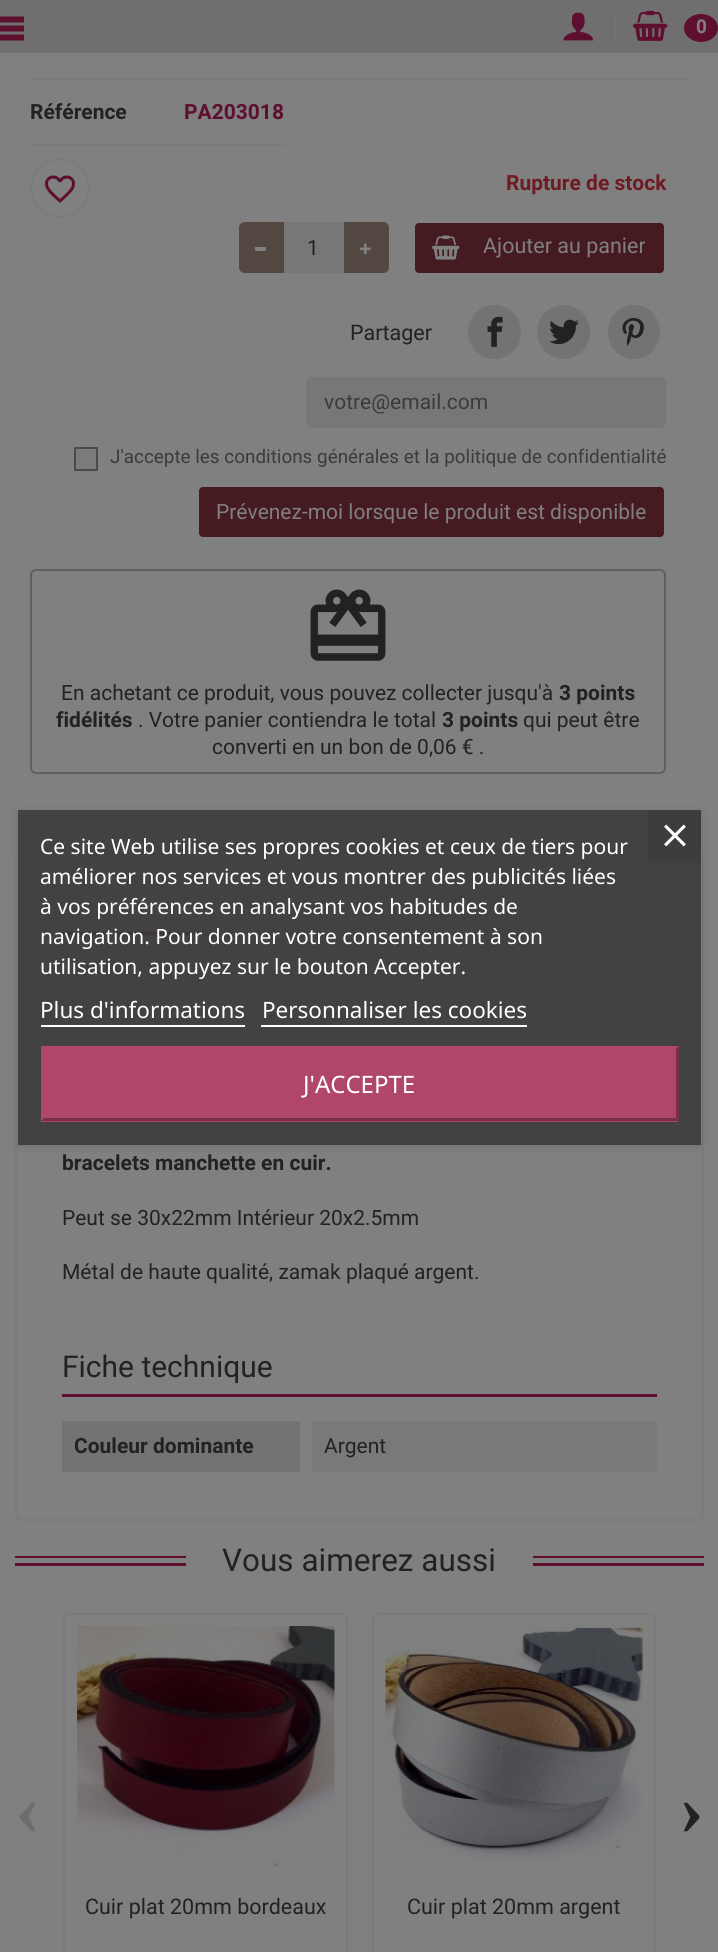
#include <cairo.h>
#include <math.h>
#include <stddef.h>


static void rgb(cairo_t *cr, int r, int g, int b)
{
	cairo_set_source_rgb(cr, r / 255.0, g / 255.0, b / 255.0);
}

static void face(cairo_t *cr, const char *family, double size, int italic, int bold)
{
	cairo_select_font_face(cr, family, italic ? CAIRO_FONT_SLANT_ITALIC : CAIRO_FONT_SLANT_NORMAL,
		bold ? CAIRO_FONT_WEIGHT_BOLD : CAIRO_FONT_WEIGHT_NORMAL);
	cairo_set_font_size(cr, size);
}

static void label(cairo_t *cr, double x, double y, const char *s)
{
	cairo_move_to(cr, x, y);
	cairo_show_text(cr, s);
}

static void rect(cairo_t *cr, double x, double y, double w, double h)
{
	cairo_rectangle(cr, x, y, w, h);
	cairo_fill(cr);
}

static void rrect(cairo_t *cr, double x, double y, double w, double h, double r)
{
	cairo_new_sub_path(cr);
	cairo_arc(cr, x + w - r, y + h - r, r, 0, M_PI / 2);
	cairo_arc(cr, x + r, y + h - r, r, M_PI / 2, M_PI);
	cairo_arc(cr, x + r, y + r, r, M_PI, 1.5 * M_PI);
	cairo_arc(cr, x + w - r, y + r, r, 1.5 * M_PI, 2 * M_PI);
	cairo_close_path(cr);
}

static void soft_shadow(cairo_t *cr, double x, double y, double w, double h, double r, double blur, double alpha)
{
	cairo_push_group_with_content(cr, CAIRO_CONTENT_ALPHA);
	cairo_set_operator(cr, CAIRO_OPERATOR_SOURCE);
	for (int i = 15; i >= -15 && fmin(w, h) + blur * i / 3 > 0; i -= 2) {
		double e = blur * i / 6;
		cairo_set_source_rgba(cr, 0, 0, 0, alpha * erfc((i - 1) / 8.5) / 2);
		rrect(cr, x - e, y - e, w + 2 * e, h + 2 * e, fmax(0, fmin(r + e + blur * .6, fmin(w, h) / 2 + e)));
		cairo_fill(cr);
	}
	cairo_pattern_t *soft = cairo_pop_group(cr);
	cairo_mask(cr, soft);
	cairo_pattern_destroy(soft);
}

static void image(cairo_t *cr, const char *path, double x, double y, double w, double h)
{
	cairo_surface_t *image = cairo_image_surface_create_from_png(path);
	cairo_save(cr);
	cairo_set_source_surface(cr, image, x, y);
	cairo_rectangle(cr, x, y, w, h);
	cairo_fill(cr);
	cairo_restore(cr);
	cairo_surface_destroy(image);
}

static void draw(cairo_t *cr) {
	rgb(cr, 128, 128, 128);
	cairo_paint(cr);
	rgb(cr, 111, 111, 111);
	rect(cr, 0, 0, 718, 53);
	image(cr, "image0.png", 0, 16, 24, 25);
	image(cr, "image1.png", 563, 12, 31, 29);
	rgb(cr, 114, 114, 114);
	rect(cr, 614, 11, 2, 31);
	image(cr, "image2.png", 633, 10, 35, 31);
	rgb(cr, 94, 15, 47);
	cairo_new_path(cr);
	cairo_move_to(cr, 701, 14);
	cairo_curve_to(cr, 710.5, 14, 718, 20.5, 718, 28);
	cairo_curve_to(cr, 718, 35.5, 710.5, 42, 701, 42);
	cairo_curve_to(cr, 691.5, 42, 684, 35.5, 684, 28);
	cairo_curve_to(cr, 684, 20.5, 691.5, 14, 701, 14);
	cairo_close_path(cr);
	cairo_fill(cr);
	face(cr, "Roboto", 19, 0, 1);
	rgb(cr, 128, 128, 128);
	label(cr, 696, 33, "0");
	rgb(cr, 123, 123, 123);
	rect(cr, 30, 78, 659, 2);
	rect(cr, 30, 144, 255, 2);
	face(cr, "Roboto", 21, 0, 1);
	rgb(cr, 34, 34, 34);
	label(cr, 30, 119, "Référence");
	rgb(cr, 94, 15, 47);
	label(cr, 184, 119, "PA203018");
	cairo_new_path(cr);
	cairo_arc(cr, 60, 188, 29, 0, 2 * M_PI);
	rgb(cr, 123, 123, 123);
	cairo_stroke(cr);
	image(cr, "image3.png", 45, 175, 30, 28);
	rgb(cr, 110, 27, 35);
	label(cr, 506, 190, "Rupture de stock");
	rgb(cr, 119, 119, 119);
	rrect(cr, 239, 222, 150, 51, 6);
	cairo_fill(cr);
	rgb(cr, 83, 72, 65);
	cairo_new_path(cr);
	cairo_move_to(cr, 245, 222);
	cairo_line_to(cr, 284, 222);
	cairo_line_to(cr, 284, 273);
	cairo_line_to(cr, 245, 273);
	cairo_curve_to(cr, 241.5, 273, 239, 270.5, 239, 267);
	cairo_line_to(cr, 239, 228);
	cairo_curve_to(cr, 239, 224.5, 241.5, 222, 245, 222);
	cairo_close_path(cr);
	cairo_fill(cr);
	rgb(cr, 128, 128, 128);
	rect(cr, 255, 247, 11, 4);
	rgb(cr, 83, 72, 65);
	cairo_new_path(cr);
	cairo_move_to(cr, 344, 222);
	cairo_line_to(cr, 383, 222);
	cairo_curve_to(cr, 386.5, 222, 389, 224.5, 389, 228);
	cairo_line_to(cr, 389, 267);
	cairo_curve_to(cr, 389, 270.5, 386.5, 273, 383, 273);
	cairo_line_to(cr, 344, 273);
	cairo_close_path(cr);
	cairo_fill(cr);
	image(cr, "image4.png", 360, 243, 11, 12);
	face(cr, "Roboto", 21, 0, 0);
	rgb(cr, 34, 34, 34);
	label(cr, 307, 255, "1");
	rgb(cr, 69, 27, 33);
	rrect(cr, 414, 222, 251, 52, 5);
	cairo_fill_preserve(cr);
	rgb(cr, 128, 128, 128);
	cairo_stroke(cr);
	image(cr, "image5.png", 432, 235, 28, 25);
	face(cr, "Roboto", 21.5, 0, 0);
	label(cr, 483, 253, "Ajouter au panier");
	rgb(cr, 34, 34, 34);
	label(cr, 350, 340, "Partager");
	rgb(cr, 115, 115, 115);
	rrect(cr, 468, 305, 53, 54, 26.5);
	cairo_fill(cr);
	image(cr, "image6.png", 487, 316, 16, 31);
	rrect(cr, 537, 305, 53, 54, 26.5);
	cairo_fill(cr);
	image(cr, "image7.png", 549, 319, 30, 26);
	rrect(cr, 608, 305, 52, 54, 26);
	cairo_fill(cr);
	image(cr, "image8.png", 622, 318, 22, 28);
	rgb(cr, 119, 119, 119);
	rrect(cr, 306, 377, 360, 51, 6);
	cairo_fill(cr);
	face(cr, "Roboto", 21, 0, 0);
	rgb(cr, 59, 59, 59);
	label(cr, 324, 409, "votre@email.com");
	rgb(cr, 118, 118, 118);
	rrect(cr, 74, 447, 24, 24, 6);
	cairo_fill(cr);
	cairo_set_source_rgba(cr, 0.502, 0.502, 0.502, 0.5);
	rect(cr, 74, 447, 24, 24);
	cairo_rectangle(cr, 75, 448, 22, 22);
	cairo_set_source_rgba(cr, 0.102, 0.102, 0.102, 0.5);
	cairo_stroke(cr);
	face(cr, "Roboto", 18.9, 0, 0);
	rgb(cr, 59, 59, 59);
	label(cr, 110, 463, "J'accepte les conditions générales et la politique de confidentialité");
	rgb(cr, 69, 27, 33);
	rrect(cr, 198, 486, 467, 52, 5);
	cairo_fill_preserve(cr);
	rgb(cr, 128, 128, 128);
	cairo_stroke(cr);
	face(cr, "Roboto", 21, 0, 0);
	label(cr, 216, 519, "Prévenez-moi lorsque le produit est disponible");
	rrect(cr, 31, 570, 634, 203, 5);
	rgb(cr, 96, 96, 96);
	cairo_stroke(cr);
	image(cr, "image9.png", 310, 589, 76, 72);
	rgb(cr, 34, 34, 34);
	label(cr, 61, 700, "En achetant ce produit, vous pouvez collecter jusqu'à");
	face(cr, "Roboto", 21, 0, 1);
	label(cr, 559, 700, "3 points");
	label(cr, 56, 727, "fidélités");
	face(cr, "Roboto", 21, 0, 0);
	label(cr, 138, 727, ". Votre panier contiendra le total");
	face(cr, "Roboto", 21, 0, 1);
	label(cr, 442, 727, "3 points");
	face(cr, "Roboto", 21, 0, 0);
	label(cr, 523, 727, "qui peut être");
	label(cr, 212, 754, "converti en un bon de 0,06 € .");
	rrect(cr, 16, 850, 687, 670, 5);
	rgb(cr, 123, 123, 123);
	cairo_stroke(cr);
	rect(cr, 195, 932, 462, 3);
	rgb(cr, 94, 15, 47);
	rect(cr, 62, 932, 133, 3);
	face(cr, "Roboto", 21, 0, 1);
	rgb(cr, 34, 34, 34);
	label(cr, 62, 1170, "bracelets manchette en cuir.");
	face(cr, "Roboto", 21, 0, 0);
	label(cr, 62, 1225, "Peut se 30x22mm Intérieur 20x2.5mm");
	label(cr, 62, 1279, "Métal de haute qualité, zamak plaqué argent.");
	rgb(cr, 94, 15, 47);
	rect(cr, 62, 1394, 595, 3);
	face(cr, "Roboto", 30, 0, 0);
	rgb(cr, 34, 34, 34);
	label(cr, 62, 1377, "Fiche technique");
	rgb(cr, 115, 115, 115);
	rect(cr, 62, 1421, 238, 51);
	face(cr, "Roboto", 21, 0, 1);
	rgb(cr, 34, 34, 34);
	label(cr, 74, 1453, "Couleur dominante");
	rgb(cr, 121, 121, 121);
	rect(cr, 312, 1421, 345, 51);
	face(cr, "Roboto", 21, 0, 0);
	rgb(cr, 34, 34, 34);
	label(cr, 324, 1453, "Argent");
	rgb(cr, 94, 15, 47);
	rect(cr, 15, 1556, 171, 2);
	rect(cr, 15, 1563, 171, 3);
	face(cr, "Roboto", 31.5, 0, 0);
	rgb(cr, 34, 34, 34);
	label(cr, 222, 1571, "Vous aimerez aussi");
	rgb(cr, 94, 15, 47);
	rect(cr, 533, 1556, 171, 2);
	rect(cr, 533, 1563, 171, 3);
	face(cr, "Liberation Serif", 75, 0, 1);
	rgb(cr, 109, 109, 109);
	label(cr, 15, 1834, "‹");
	rgb(cr, 34, 34, 34);
	label(cr, 679, 1834, "›");
	rrect(cr, 64, 1614, 283, 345, 5);
	rgb(cr, 123, 123, 123);
	cairo_stroke(cr);
	image(cr, "image10.png", 77, 1626, 258, 243);
	face(cr, "Roboto", 21.5, 0, 0);
	rgb(cr, 34, 34, 34);
	label(cr, 85, 1914, "Cuir plat 20mm bordeaux");
	rrect(cr, 373, 1614, 282, 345, 5);
	rgb(cr, 123, 123, 123);
	cairo_stroke(cr);
	image(cr, "image11.png", 385, 1626, 258, 236);
	rgb(cr, 34, 34, 34);
	label(cr, 407, 1914, "Cuir plat 20mm argent");
	cairo_save(cr);
	cairo_set_fill_rule(cr, CAIRO_FILL_RULE_EVEN_ODD);
	cairo_new_path(cr);
	cairo_move_to(cr, 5, 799);
	cairo_line_to(cr, 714, 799);
	cairo_line_to(cr, 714, 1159);
	cairo_line_to(cr, 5, 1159);
	cairo_close_path(cr);
	cairo_move_to(cr, 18, 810);
	cairo_line_to(cr, 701, 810);
	cairo_line_to(cr, 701, 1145);
	cairo_line_to(cr, 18, 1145);
	cairo_close_path(cr);
	cairo_clip(cr);
	rgb(cr, 112, 112, 112);
	soft_shadow(cr, 18, 812, 683, 334, 0, 4, 1);
	cairo_restore(cr);
	cairo_set_source_rgba(cr, 0.231, 0.231, 0.231, 0.9);
	rect(cr, 18, 810, 683, 335);
	face(cr, "Noto Sans", 21, 0, 0);
	rgb(cr, 255, 255, 255);
	label(cr, 40, 854, "Ce site Web utilise ses propres cookies et ceux de tiers pour");
	label(cr, 40, 884, "améliorer nos services et vous montrer des publicités liées");
	label(cr, 40, 914, "à vos préférences en analysant vos habitudes de");
	label(cr, 40, 944, "navigation. Pour donner votre consentement à son");
	label(cr, 40, 974, "utilisation, appuyez sur le bouton Accepter.");
	face(cr, "Noto Sans", 22.5, 0, 0);
	label(cr, 40, 1018, "Plus d'informations");
	rect(cr, 41, 1025, 204, 2);
	label(cr, 262, 1018, "Personnaliser les cookies");
	rect(cr, 261, 1025, 266, 2);
	rgb(cr, 177, 70, 107);
	rect(cr, 41, 1047, 637, 75);
	cairo_new_path(cr);
	cairo_move_to(cr, 41, 1046);
	cairo_line_to(cr, 679, 1046);
	cairo_line_to(cr, 676, 1049);
	cairo_line_to(cr, 44, 1049);
	cairo_close_path(cr);
	cairo_fill(cr);
	rgb(cr, 118, 47, 71);
	cairo_new_path(cr);
	cairo_move_to(cr, 679, 1046);
	cairo_line_to(cr, 679, 1121);
	cairo_line_to(cr, 676, 1118);
	cairo_line_to(cr, 676, 1049);
	cairo_close_path(cr);
	cairo_fill(cr);
	cairo_new_path(cr);
	cairo_move_to(cr, 679, 1121);
	cairo_line_to(cr, 41, 1121);
	cairo_line_to(cr, 44, 1118);
	cairo_line_to(cr, 676, 1118);
	cairo_close_path(cr);
	cairo_fill(cr);
	rgb(cr, 177, 70, 107);
	cairo_new_path(cr);
	cairo_move_to(cr, 41, 1121);
	cairo_line_to(cr, 41, 1046);
	cairo_line_to(cr, 44, 1049);
	cairo_line_to(cr, 44, 1118);
	cairo_close_path(cr);
	cairo_fill(cr);
	face(cr, "Noto Sans", 24, 0, 0);
	rgb(cr, 255, 255, 255);
	label(cr, 303, 1093, "J'ACCEPTE");
	rgb(cr, 61, 61, 61);
	rect(cr, 648, 810, 53, 53);
	image(cr, "image12.png", 664, 824, 22, 23);
}

int main(void) {
	cairo_surface_t *surface = cairo_image_surface_create(CAIRO_FORMAT_RGB24, 718, 1952);
	cairo_t *cr = cairo_create(surface);
	cairo_font_options_t *options = cairo_font_options_create();
	cairo_font_options_set_hint_metrics(options, CAIRO_HINT_METRICS_OFF);
	cairo_font_options_set_hint_style(options, CAIRO_HINT_STYLE_NONE);
	cairo_set_font_options(cr, options);
	cairo_set_miter_limit(cr, 4);
	draw(cr);
	cairo_surface_write_to_png(surface, "render.png");
	cairo_font_options_destroy(options);
	cairo_destroy(cr);
	cairo_surface_destroy(surface);
	return 0;
}
